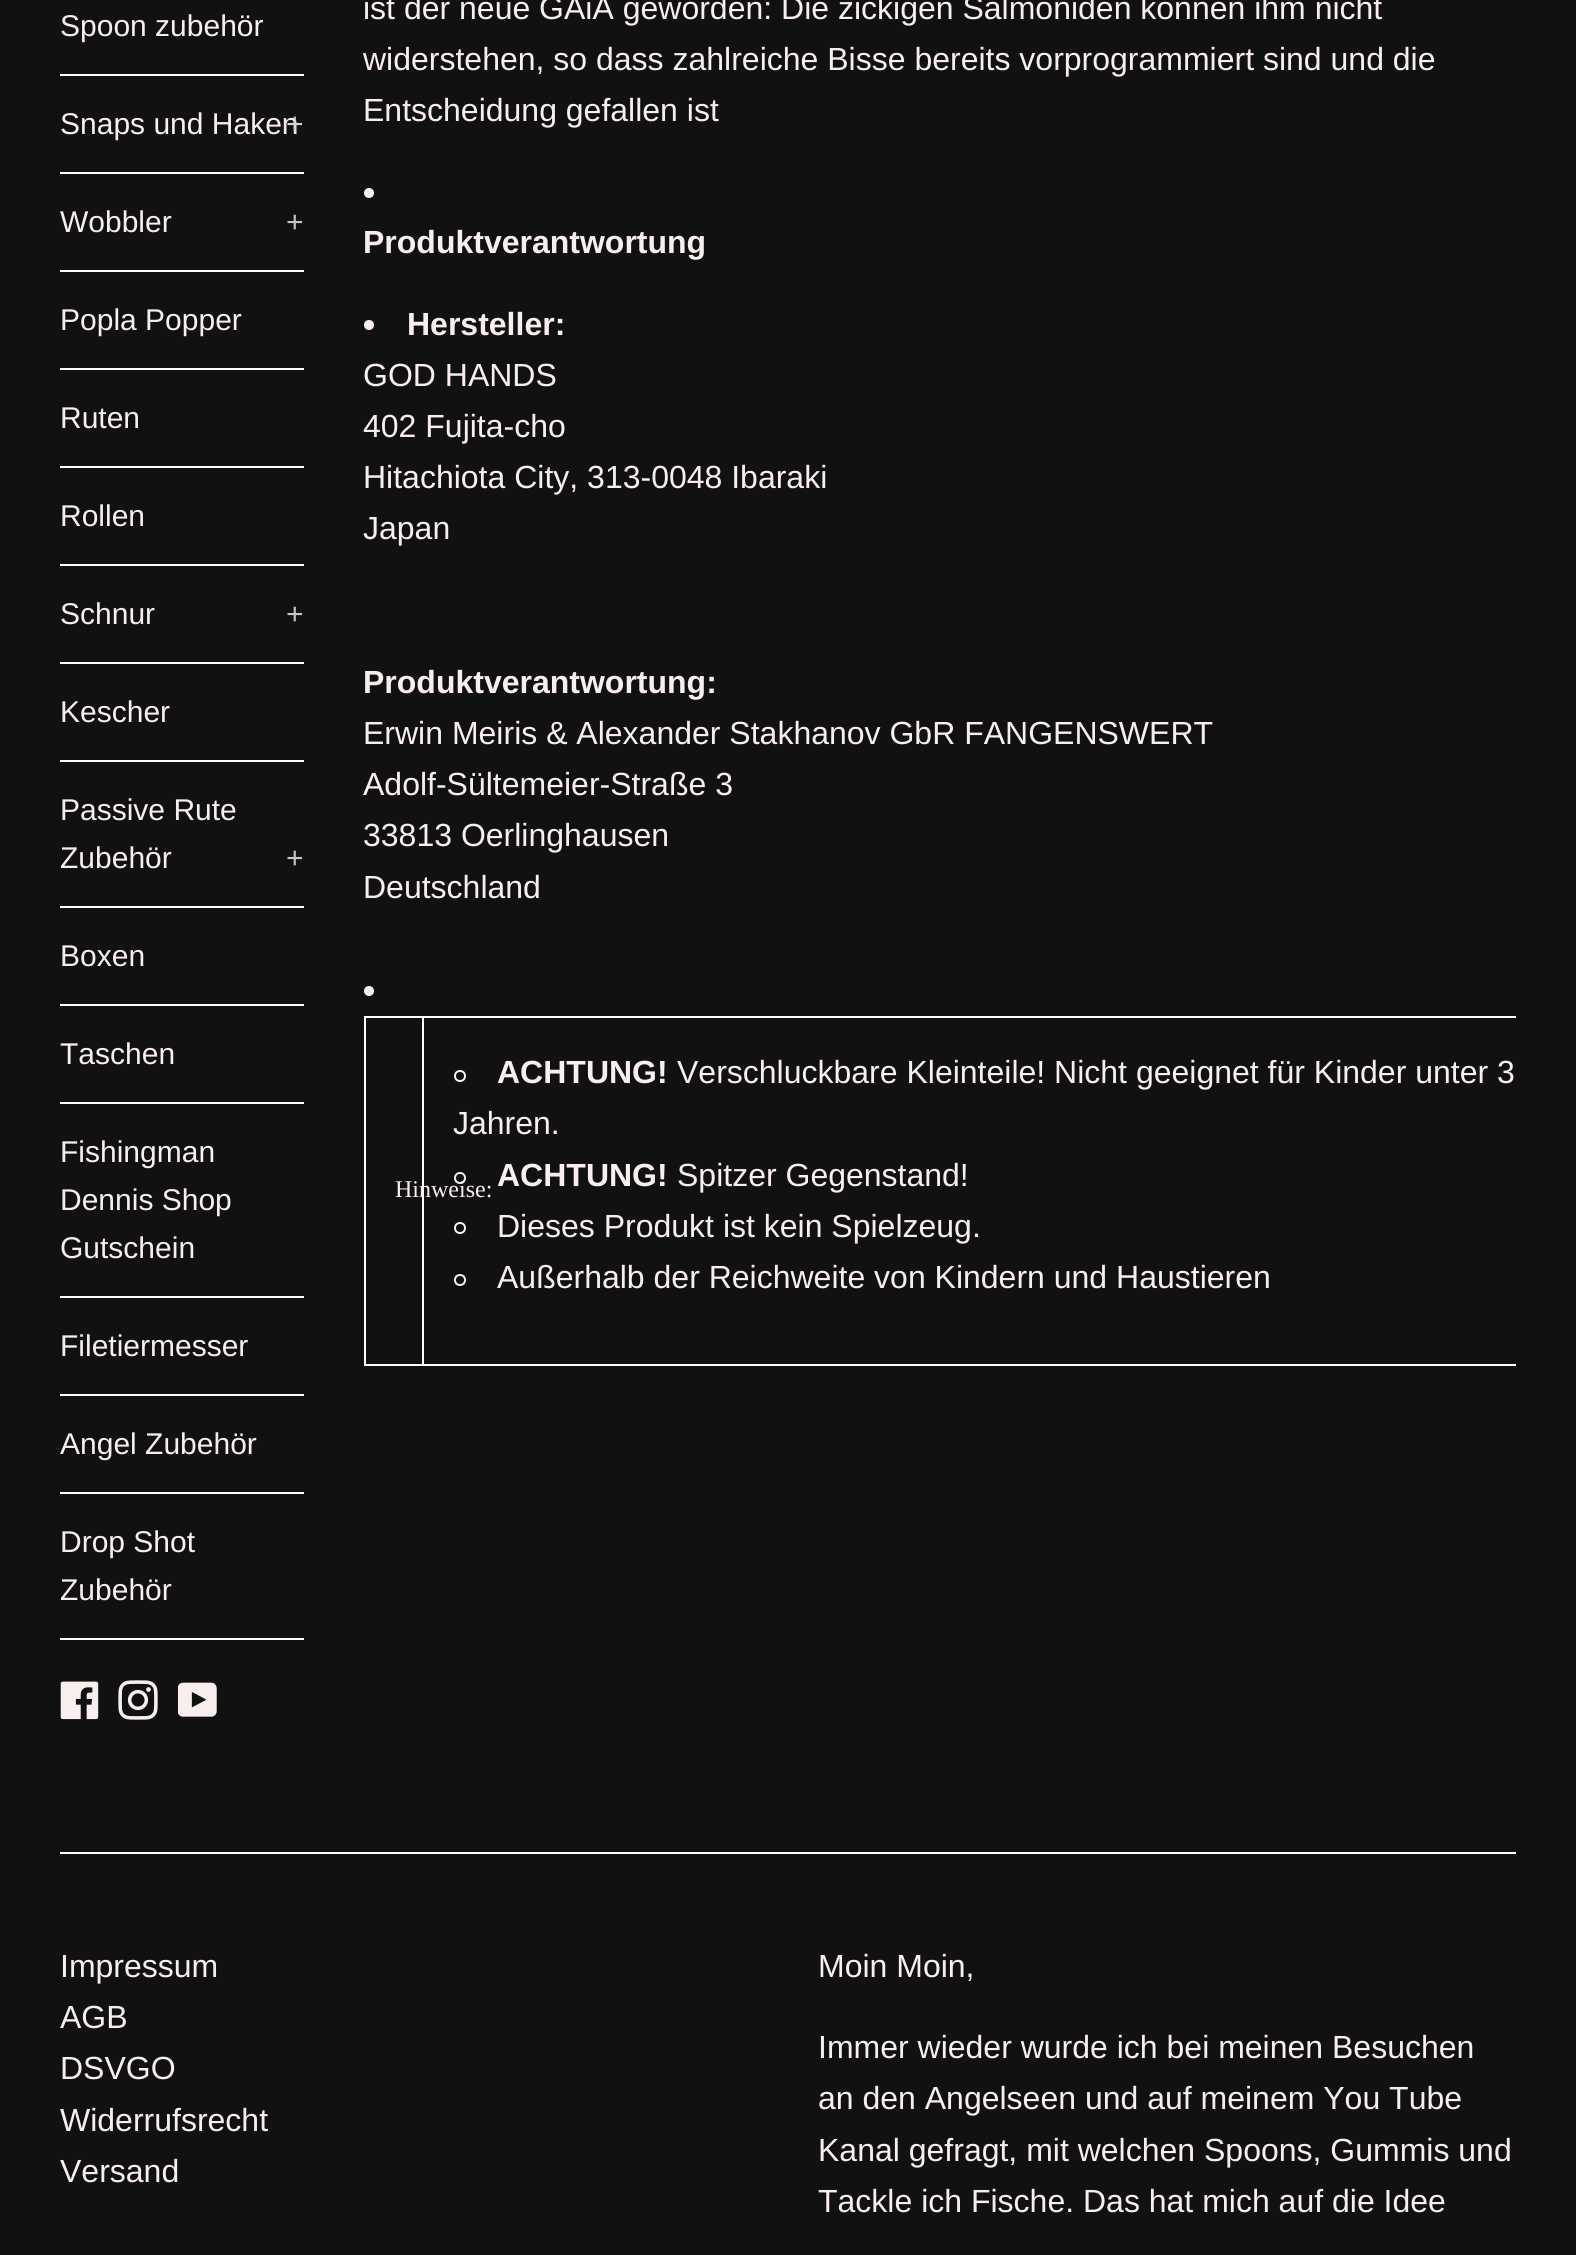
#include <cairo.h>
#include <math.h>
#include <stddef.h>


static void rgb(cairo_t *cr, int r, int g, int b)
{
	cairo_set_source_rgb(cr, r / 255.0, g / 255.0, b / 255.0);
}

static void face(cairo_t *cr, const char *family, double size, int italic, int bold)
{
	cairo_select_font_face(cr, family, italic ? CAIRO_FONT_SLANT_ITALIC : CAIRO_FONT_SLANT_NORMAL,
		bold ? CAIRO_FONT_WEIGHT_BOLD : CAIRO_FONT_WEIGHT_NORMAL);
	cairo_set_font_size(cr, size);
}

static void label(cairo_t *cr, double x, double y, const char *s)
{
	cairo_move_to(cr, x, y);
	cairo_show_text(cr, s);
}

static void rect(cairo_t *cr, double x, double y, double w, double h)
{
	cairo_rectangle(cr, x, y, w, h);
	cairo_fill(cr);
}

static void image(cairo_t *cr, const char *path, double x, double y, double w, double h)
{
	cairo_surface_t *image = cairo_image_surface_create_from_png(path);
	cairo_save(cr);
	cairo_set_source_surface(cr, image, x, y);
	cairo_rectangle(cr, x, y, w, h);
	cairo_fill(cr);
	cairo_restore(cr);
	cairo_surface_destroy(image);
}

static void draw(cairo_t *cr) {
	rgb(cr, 18, 17, 17);
	cairo_paint(cr);
	rgb(cr, 255, 255, 255);
	rect(cr, 60, 74, 244, 2);
	face(cr, "Liberation Sans", 30, 0, 0);
	rgb(cr, 249, 238, 238);
	label(cr, 60, 36, "Spoon zubehör");
	rgb(cr, 255, 255, 255);
	rect(cr, 60, 172, 244, 2);
	rgb(cr, 249, 238, 238);
	label(cr, 60, 134, "Snaps und Haken");
	rgb(cr, 218, 209, 209);
	label(cr, 286, 134, "+");
	rgb(cr, 255, 255, 255);
	rect(cr, 60, 270, 244, 2);
	rgb(cr, 249, 238, 238);
	label(cr, 60, 232, "Wobbler");
	rgb(cr, 203, 194, 194);
	label(cr, 286, 232, "+");
	rgb(cr, 255, 255, 255);
	rect(cr, 60, 368, 244, 2);
	rgb(cr, 249, 238, 238);
	label(cr, 60, 330, "Popla Popper");
	rgb(cr, 255, 255, 255);
	rect(cr, 60, 466, 244, 2);
	rgb(cr, 249, 238, 238);
	label(cr, 60, 428, "Ruten");
	rgb(cr, 255, 255, 255);
	rect(cr, 60, 564, 244, 2);
	rgb(cr, 249, 238, 238);
	label(cr, 60, 526, "Rollen");
	rgb(cr, 255, 255, 255);
	rect(cr, 60, 662, 244, 2);
	rgb(cr, 249, 238, 238);
	label(cr, 60, 624, "Schnur");
	rgb(cr, 203, 194, 194);
	label(cr, 286, 624, "+");
	rgb(cr, 255, 255, 255);
	rect(cr, 60, 760, 244, 2);
	rgb(cr, 249, 238, 238);
	label(cr, 60, 722, "Kescher");
	rgb(cr, 255, 255, 255);
	rect(cr, 60, 906, 244, 2);
	rgb(cr, 249, 238, 238);
	label(cr, 60, 820, "Passive Rute");
	label(cr, 60, 868, "Zubehör");
	rgb(cr, 203, 194, 194);
	label(cr, 286, 868, "+");
	rgb(cr, 255, 255, 255);
	rect(cr, 60, 1004, 244, 2);
	rgb(cr, 249, 238, 238);
	label(cr, 60, 966, "Boxen");
	rgb(cr, 255, 255, 255);
	rect(cr, 60, 1102, 244, 2);
	rgb(cr, 249, 238, 238);
	label(cr, 60, 1064, "Taschen");
	rgb(cr, 255, 255, 255);
	rect(cr, 60, 1296, 244, 2);
	rgb(cr, 249, 238, 238);
	label(cr, 60, 1162, "Fishingman");
	label(cr, 60, 1210, "Dennis Shop");
	label(cr, 60, 1258, "Gutschein");
	rgb(cr, 255, 255, 255);
	rect(cr, 60, 1394, 244, 2);
	rgb(cr, 249, 238, 238);
	label(cr, 60, 1356, "Filetiermesser");
	rgb(cr, 255, 255, 255);
	rect(cr, 60, 1492, 244, 2);
	rgb(cr, 249, 238, 238);
	label(cr, 60, 1454, "Angel Zubehör");
	rgb(cr, 255, 255, 255);
	rect(cr, 60, 1638, 244, 2);
	rgb(cr, 249, 238, 238);
	label(cr, 60, 1552, "Drop Shot");
	label(cr, 60, 1600, "Zubehör");
	image(cr, "image0.png", 60, 1681, 39, 39);
	image(cr, "image1.png", 118, 1680, 40, 40);
	image(cr, "image2.png", 178, 1682, 39, 35);
	face(cr, "Liberation Sans", 32, 0, 0);
	label(cr, 363, 19, "ist der neue GAiA geworden: Die zickigen Salmoniden können ihm nicht");
	label(cr, 363, 70, "widerstehen, so dass zahlreiche Bisse bereits vorprogrammiert sind und die");
	label(cr, 363, 121, "Entscheidung gefallen ist");
	cairo_new_path(cr);
	cairo_arc(cr, 369, 193, 5, 0, 2 * M_PI);
	cairo_fill(cr);
	face(cr, "Liberation Sans", 32, 0, 1);
	label(cr, 363, 253, "Produktverantwortung");
	cairo_new_path(cr);
	cairo_arc(cr, 369, 325, 5, 0, 2 * M_PI);
	cairo_fill(cr);
	label(cr, 407, 335, "Hersteller:");
	face(cr, "Liberation Sans", 32, 0, 0);
	label(cr, 363, 386, "GOD HANDS");
	label(cr, 363, 437, "402 Fujita-cho");
	label(cr, 363, 488, "Hitachiota City, 313-0048 Ibaraki");
	label(cr, 363, 539, "Japan");
	face(cr, "Liberation Sans", 32, 0, 1);
	label(cr, 363, 693, "Produktverantwortung:");
	face(cr, "Liberation Sans", 32, 0, 0);
	label(cr, 363, 744, "Erwin Meiris & Alexander Stakhanov GbR FANGENSWERT");
	label(cr, 363, 795, "Adolf-Sültemeier-Straße 3");
	label(cr, 363, 846, "33813 Oerlinghausen");
	label(cr, 363, 898, "Deutschland");
	cairo_new_path(cr);
	cairo_arc(cr, 369, 991, 5, 0, 2 * M_PI);
	cairo_fill(cr);
	rgb(cr, 255, 255, 255);
	rect(cr, 364, 1016, 1152, 2);
	rect(cr, 364, 1364, 1152, 2);
	rect(cr, 364, 1016, 2, 350);
	rect(cr, 422, 1016, 2, 350);
	face(cr, "Liberation Serif", 24, 0, 0);
	rgb(cr, 249, 238, 238);
	label(cr, 395, 1197, "Hinweise:");
	cairo_new_path(cr);
	cairo_arc(cr, 460, 1076, 5, 0, 2 * M_PI);
	cairo_stroke(cr);
	face(cr, "Liberation Sans", 32, 0, 1);
	label(cr, 497, 1083, "ACHTUNG!");
	face(cr, "Liberation Sans", 32, 0, 0);
	label(cr, 677, 1083, "Verschluckbare Kleinteile! Nicht geeignet für Kinder unter 3");
	label(cr, 453, 1134, "Jahren.");
	cairo_new_path(cr);
	cairo_arc(cr, 460, 1178, 5, 0, 2 * M_PI);
	cairo_stroke(cr);
	face(cr, "Liberation Sans", 32, 0, 1);
	label(cr, 497, 1186, "ACHTUNG!");
	face(cr, "Liberation Sans", 32, 0, 0);
	label(cr, 677, 1186, "Spitzer Gegenstand!");
	cairo_new_path(cr);
	cairo_arc(cr, 460, 1228, 5, 0, 2 * M_PI);
	cairo_stroke(cr);
	label(cr, 497, 1237, "Dieses Produkt ist kein Spielzeug.");
	cairo_new_path(cr);
	cairo_arc(cr, 460, 1280, 5, 0, 2 * M_PI);
	cairo_stroke(cr);
	label(cr, 497, 1288, "Außerhalb der Reichweite von Kindern und Haustieren");
	rgb(cr, 255, 255, 255);
	rect(cr, 60, 1852, 1456, 2);
	rgb(cr, 249, 238, 238);
	label(cr, 60, 1977, "Impressum");
	label(cr, 60, 2028, "AGB");
	label(cr, 60, 2079, "DSVGO");
	label(cr, 60, 2131, "Widerrufsrecht");
	label(cr, 60, 2182, "Versand");
	label(cr, 818, 1977, "Moin Moin,");
	label(cr, 818, 2058, "Immer wieder wurde ich bei meinen Besuchen");
	label(cr, 818, 2109, "an den Angelseen und auf meinem You Tube");
	label(cr, 818, 2161, "Kanal gefragt, mit welchen Spoons, Gummis und");
	label(cr, 818, 2212, "Tackle ich Fische. Das hat mich auf die Idee");
}

int main(void) {
	cairo_surface_t *surface = cairo_image_surface_create(CAIRO_FORMAT_RGB24, 1576, 2255);
	cairo_t *cr = cairo_create(surface);
	cairo_font_options_t *options = cairo_font_options_create();
	cairo_font_options_set_hint_metrics(options, CAIRO_HINT_METRICS_OFF);
	cairo_font_options_set_hint_style(options, CAIRO_HINT_STYLE_NONE);
	cairo_set_font_options(cr, options);
	cairo_set_miter_limit(cr, 4);
	draw(cr);
	cairo_surface_write_to_png(surface, "render.png");
	cairo_font_options_destroy(options);
	cairo_destroy(cr);
	cairo_surface_destroy(surface);
	return 0;
}
